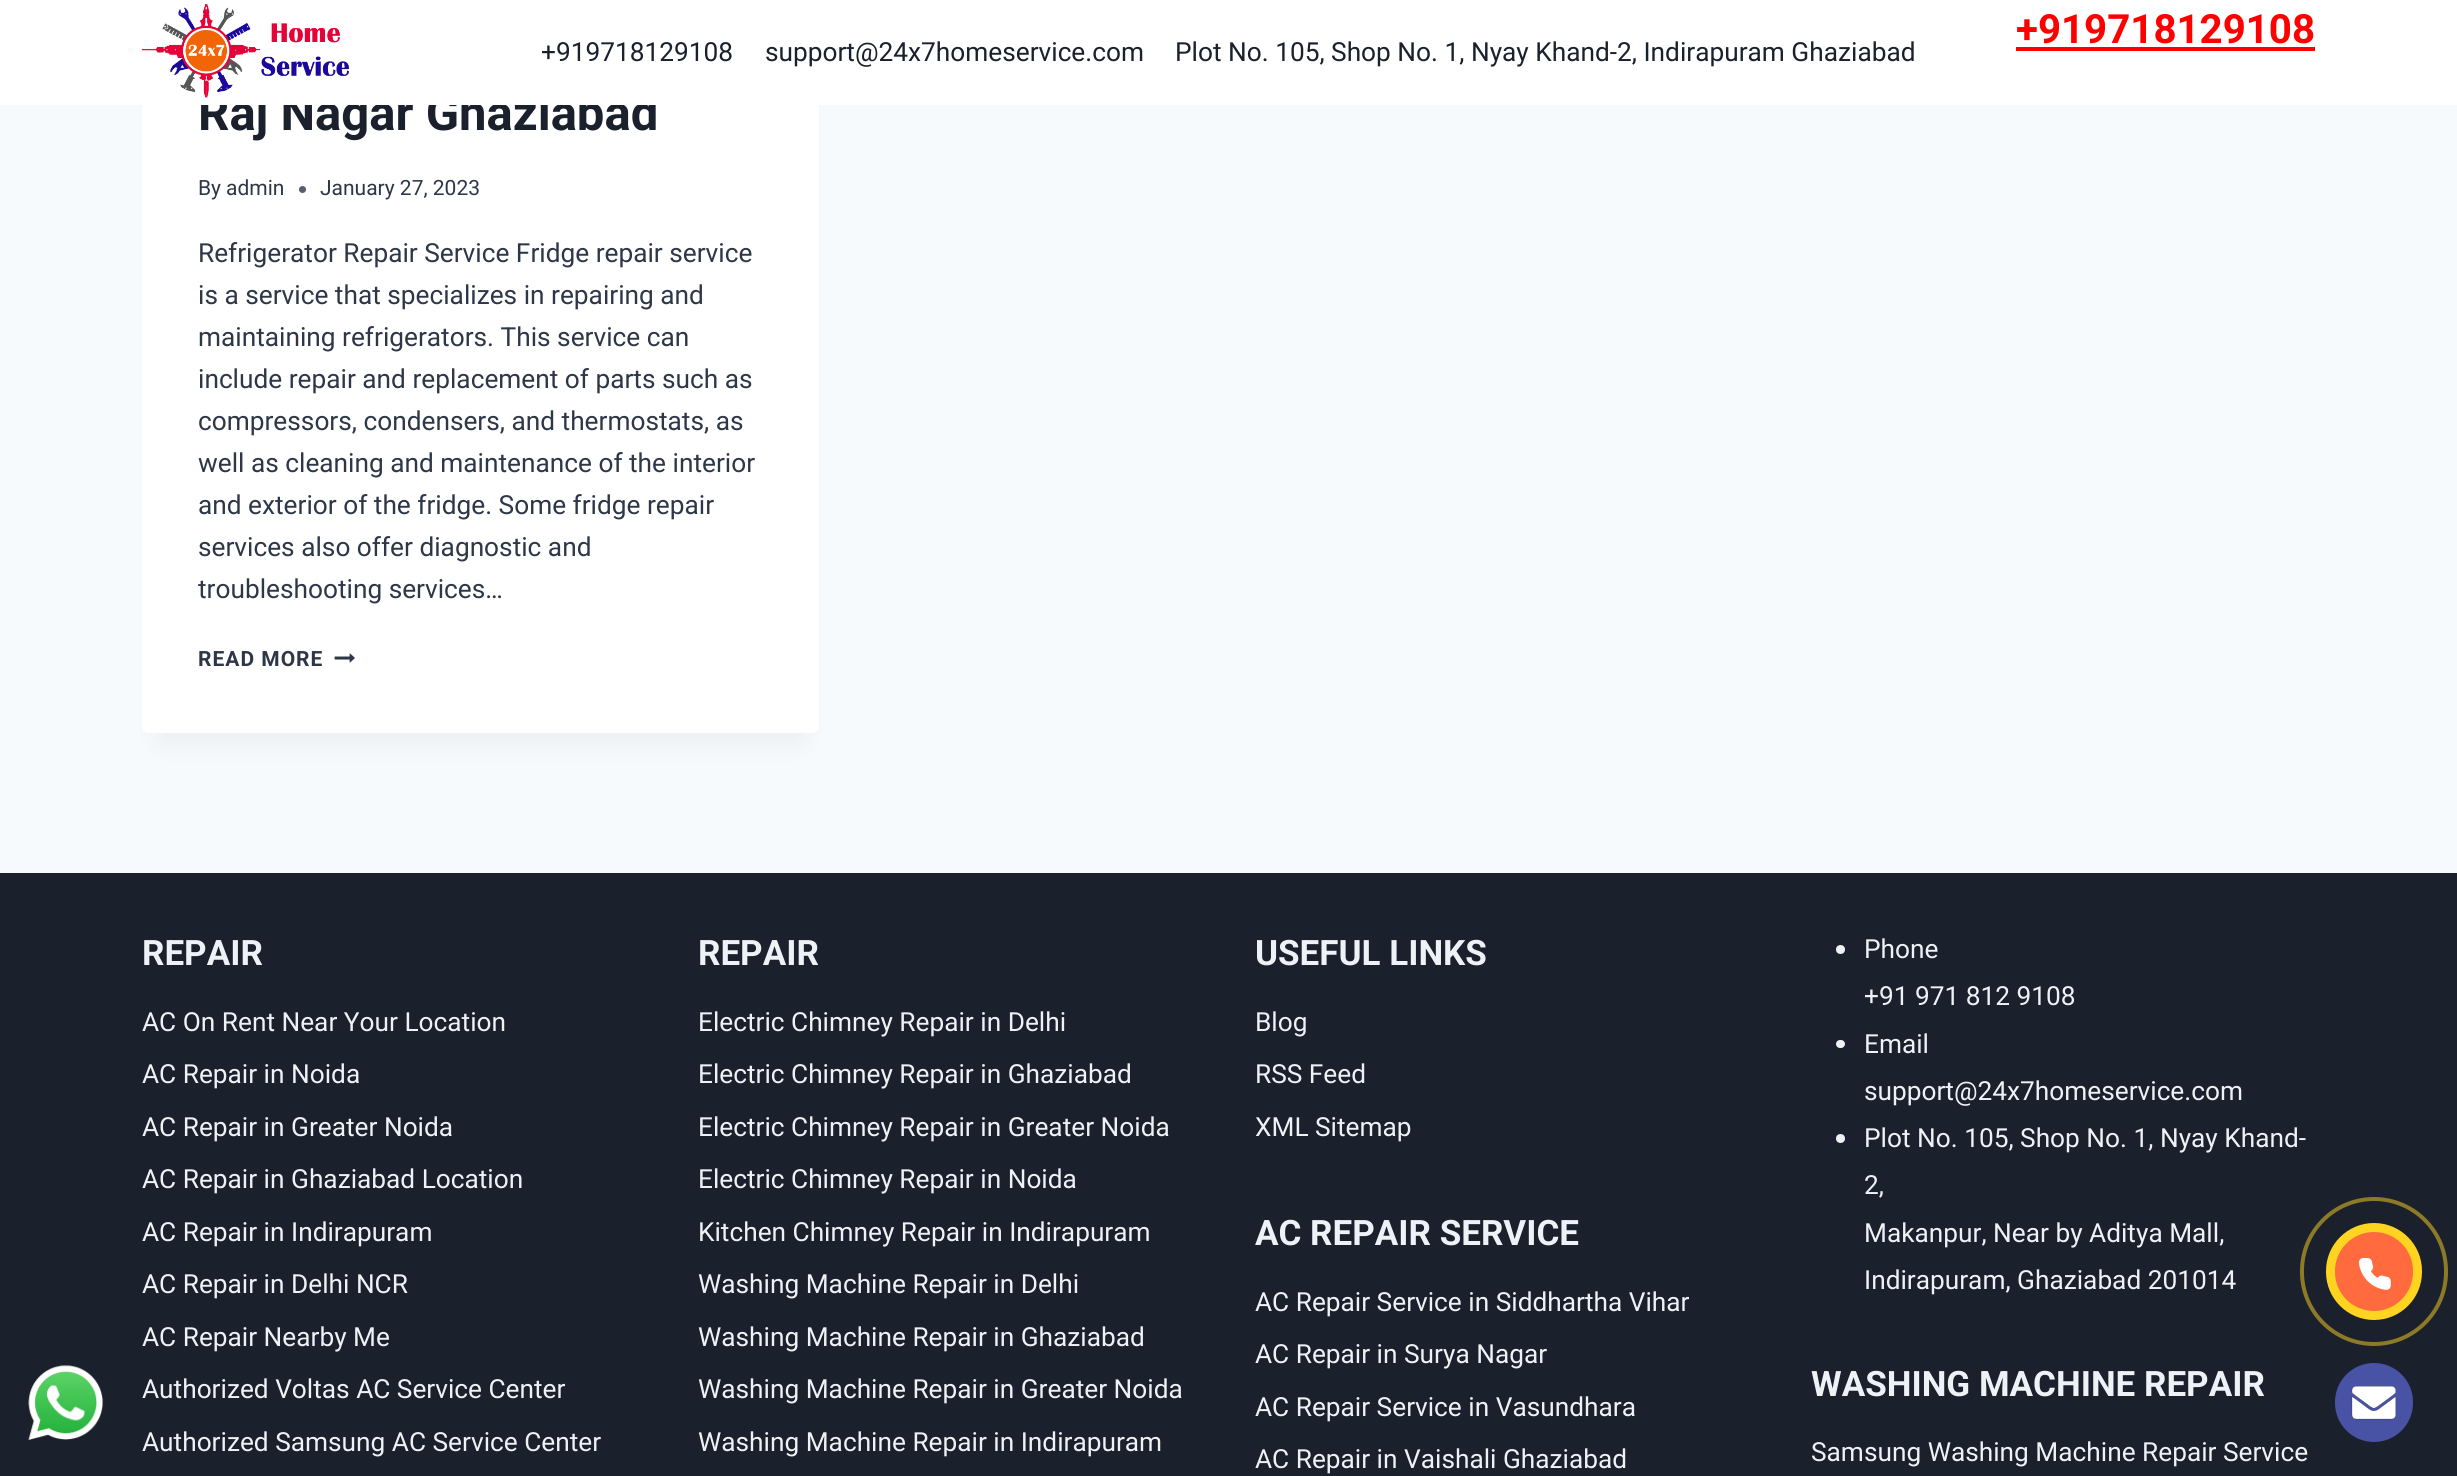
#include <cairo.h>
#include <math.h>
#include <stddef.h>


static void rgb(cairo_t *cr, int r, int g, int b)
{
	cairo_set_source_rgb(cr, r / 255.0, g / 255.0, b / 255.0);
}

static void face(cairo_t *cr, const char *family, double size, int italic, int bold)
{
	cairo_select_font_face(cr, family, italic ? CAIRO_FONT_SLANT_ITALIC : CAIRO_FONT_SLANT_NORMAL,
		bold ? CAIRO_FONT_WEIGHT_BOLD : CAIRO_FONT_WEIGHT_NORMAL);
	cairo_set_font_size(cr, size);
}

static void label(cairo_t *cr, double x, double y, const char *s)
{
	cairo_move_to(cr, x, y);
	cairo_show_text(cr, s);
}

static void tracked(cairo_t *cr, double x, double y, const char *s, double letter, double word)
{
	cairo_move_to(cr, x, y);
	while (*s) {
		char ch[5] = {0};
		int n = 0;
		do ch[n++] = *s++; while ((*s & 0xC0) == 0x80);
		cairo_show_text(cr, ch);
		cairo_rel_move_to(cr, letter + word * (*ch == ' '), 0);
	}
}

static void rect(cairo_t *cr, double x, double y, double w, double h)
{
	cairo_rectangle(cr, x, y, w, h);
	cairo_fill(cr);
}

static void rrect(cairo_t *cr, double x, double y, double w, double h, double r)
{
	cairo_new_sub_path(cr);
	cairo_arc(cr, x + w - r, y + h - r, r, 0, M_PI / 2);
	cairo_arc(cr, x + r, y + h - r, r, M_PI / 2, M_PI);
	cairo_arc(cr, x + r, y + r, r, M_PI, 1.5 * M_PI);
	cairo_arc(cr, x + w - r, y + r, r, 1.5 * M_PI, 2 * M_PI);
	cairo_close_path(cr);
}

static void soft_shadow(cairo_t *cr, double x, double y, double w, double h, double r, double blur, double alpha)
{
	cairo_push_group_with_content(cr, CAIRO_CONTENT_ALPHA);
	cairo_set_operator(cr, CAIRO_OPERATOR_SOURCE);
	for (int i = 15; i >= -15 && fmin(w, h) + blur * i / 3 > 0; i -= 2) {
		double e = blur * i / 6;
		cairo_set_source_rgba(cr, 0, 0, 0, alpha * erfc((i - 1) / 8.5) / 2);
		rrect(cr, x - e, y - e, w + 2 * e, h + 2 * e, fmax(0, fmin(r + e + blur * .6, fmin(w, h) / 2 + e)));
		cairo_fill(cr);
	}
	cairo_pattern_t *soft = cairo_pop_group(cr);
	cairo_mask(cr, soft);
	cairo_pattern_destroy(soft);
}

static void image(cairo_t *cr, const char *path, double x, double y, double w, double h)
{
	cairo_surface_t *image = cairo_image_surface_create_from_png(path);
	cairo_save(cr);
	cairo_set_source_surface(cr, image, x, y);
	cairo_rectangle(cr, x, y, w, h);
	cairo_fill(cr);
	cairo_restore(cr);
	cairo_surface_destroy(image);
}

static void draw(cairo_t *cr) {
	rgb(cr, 247, 250, 252);
	cairo_paint(cr);
	rgb(cr, 0, 0, 0);
	soft_shadow(cr, 159, -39, 643, 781, 0, 13, 0.05);
	rgb(cr, 255, 255, 255);
	rrect(cr, 142, -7, 677, 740, 7);
	cairo_fill(cr);
	face(cr, "Roboto", 49, 0, 1);
	rgb(cr, 26, 32, 44);
	label(cr, 198, 130, "Raj Nagar Ghaziabad");
	rgb(cr, 255, 255, 255);
	rect(cr, 0, 0, 2457, 105);
	image(cr, "image0.png", 141, 4, 208, 94);
	face(cr, "Roboto", 40.25, 0, 1);
	rgb(cr, 255, 0, 0);
	label(cr, 2016, 43, "+919718129108");
	rect(cr, 2016, 47, 299, 4);
	face(cr, "Roboto", 26.25, 0, 0);
	rgb(cr, 26, 32, 44);
	label(cr, 541, 61, "+919718129108");
	label(cr, 765, 61, "support@24x7homeservice.com");
	label(cr, 1175, 61, "Plot No. 105, Shop No. 1, Nyay Khand-2, Indirapuram Ghaziabad");
	face(cr, "Roboto", 21, 0, 0);
	rgb(cr, 45, 55, 72);
	label(cr, 198, 195, "By");
	label(cr, 226, 195, "admin");
	rgb(cr, 87, 95, 109);
	cairo_new_path(cr);
	cairo_arc(cr, 302.5, 189.5, 3.5, 0, 2 * M_PI);
	cairo_fill(cr);
	rgb(cr, 45, 55, 72);
	label(cr, 320, 195, "January 27, 2023");
	face(cr, "Roboto", 26.25, 0, 0);
	label(cr, 198, 262, "Refrigerator Repair Service Fridge repair service");
	label(cr, 198, 304, "is a service that specializes in repairing and");
	label(cr, 198, 346, "maintaining refrigerators. This service can");
	label(cr, 198, 388, "include repair and replacement of parts such as");
	label(cr, 198, 430, "compressors, condensers, and thermostats, as");
	label(cr, 198, 472, "well as cleaning and maintenance of the interior");
	label(cr, 198, 514, "and exterior of the fridge. Some fridge repair");
	label(cr, 198, 556, "services also offer diagnostic and");
	label(cr, 198, 598, "troubleshooting services…");
	face(cr, "Roboto", 21, 0, 1);
	tracked(cr, 198, 666, "READ MORE", 1, 0);
	image(cr, "image1.png", 334, 653, 21, 10);
	rgb(cr, 26, 32, 44);
	rect(cr, 0, 873, 2457, 603);
	face(cr, "Roboto", 35, 0, 1);
	rgb(cr, 237, 242, 247);
	label(cr, 142, 965, "REPAIR");
	face(cr, "Roboto", 26.25, 0, 0);
	label(cr, 142, 1031, "AC On Rent Near Your Location");
	label(cr, 142, 1083, "AC Repair in Noida");
	label(cr, 142, 1136, "AC Repair in Greater Noida");
	label(cr, 142, 1188, "AC Repair in Ghaziabad Location");
	label(cr, 142, 1241, "AC Repair in Indirapuram");
	label(cr, 142, 1293, "AC Repair in Delhi NCR");
	label(cr, 142, 1346, "AC Repair Nearby Me");
	label(cr, 142, 1398, "Authorized Voltas AC Service Center");
	label(cr, 142, 1451, "Authorized Samsung AC Service Center");
	face(cr, "Roboto", 35, 0, 1);
	label(cr, 698, 965, "REPAIR");
	face(cr, "Roboto", 26.25, 0, 0);
	label(cr, 698, 1031, "Electric Chimney Repair in Delhi");
	label(cr, 698, 1083, "Electric Chimney Repair in Ghaziabad");
	label(cr, 698, 1136, "Electric Chimney Repair in Greater Noida");
	label(cr, 698, 1188, "Electric Chimney Repair in Noida");
	label(cr, 698, 1241, "Kitchen Chimney Repair in Indirapuram");
	label(cr, 698, 1293, "Washing Machine Repair in Delhi");
	label(cr, 698, 1346, "Washing Machine Repair in Ghaziabad");
	label(cr, 698, 1398, "Washing Machine Repair in Greater Noida");
	label(cr, 698, 1451, "Washing Machine Repair in Indirapuram");
	face(cr, "Roboto", 35, 0, 1);
	label(cr, 1255, 965, "USEFUL LINKS");
	face(cr, "Roboto", 26.25, 0, 0);
	label(cr, 1255, 1031, "Blog");
	label(cr, 1255, 1083, "RSS Feed");
	label(cr, 1255, 1136, "XML Sitemap");
	face(cr, "Roboto", 35, 0, 1);
	label(cr, 1255, 1245, "AC REPAIR SERVICE");
	face(cr, "Roboto", 26.25, 0, 0);
	label(cr, 1255, 1311, "AC Repair Service in Siddhartha Vihar");
	label(cr, 1255, 1363, "AC Repair in Surya Nagar");
	label(cr, 1255, 1416, "AC Repair Service in Vasundhara");
	label(cr, 1255, 1468, "AC Repair in Vaishali Ghaziabad");
	cairo_new_path(cr);
	cairo_arc(cr, 1840.5, 949.5, 4.5, 0, 2 * M_PI);
	cairo_fill(cr);
	label(cr, 1864, 958, "Phone");
	label(cr, 1864, 1005, "+91 971 812 9108");
	rrect(cr, 1836, 1040, 9, 8, 4);
	cairo_fill(cr);
	label(cr, 1864, 1053, "Email");
	label(cr, 1864, 1100, "support@24x7homeservice.com");
	cairo_new_path(cr);
	cairo_arc(cr, 1840.5, 1138.5, 4.5, 0, 2 * M_PI);
	cairo_fill(cr);
	label(cr, 1864, 1147, "Plot No. 105, Shop No. 1, Nyay Khand-");
	label(cr, 1864, 1194, "2,");
	label(cr, 1864, 1242, "Makanpur, Near by Aditya Mall,");
	label(cr, 1864, 1289, "Indirapuram, Ghaziabad 201014");
	face(cr, "Roboto", 35, 0, 1);
	label(cr, 1811, 1396, "WASHING MACHINE REPAIR");
	face(cr, "Roboto", 26.25, 0, 0);
	label(cr, 1811, 1461, "Samsung Washing Machine Repair Service");
	rrect(cr, 2302, 1199, 144, 145, 72);
	rgb(cr, 140, 122, 38);
	cairo_set_line_width(cr, 4);
	cairo_stroke(cr);
	rgb(cr, 254, 212, 32);
	rrect(cr, 2326, 1223, 96, 97, 48);
	cairo_fill(cr);
	rgb(cr, 255, 106, 62);
	rrect(cr, 2335, 1232, 78, 79, 39);
	cairo_fill(cr);
	image(cr, "image2.png", 2358, 1258, 33, 32);
	image(cr, "image3.png", 28, 1365, 76, 76);
	rgb(cr, 72, 83, 165);
	rrect(cr, 2335, 1363, 78, 79, 39);
	cairo_fill(cr);
	image(cr, "image4.png", 2351, 1386, 45, 34);
}

int main(void) {
	cairo_surface_t *surface = cairo_image_surface_create(CAIRO_FORMAT_RGB24, 2457, 1476);
	cairo_t *cr = cairo_create(surface);
	cairo_font_options_t *options = cairo_font_options_create();
	cairo_font_options_set_hint_metrics(options, CAIRO_HINT_METRICS_OFF);
	cairo_font_options_set_hint_style(options, CAIRO_HINT_STYLE_NONE);
	cairo_set_font_options(cr, options);
	cairo_set_miter_limit(cr, 4);
	draw(cr);
	cairo_surface_write_to_png(surface, "render.png");
	cairo_font_options_destroy(options);
	cairo_destroy(cr);
	cairo_surface_destroy(surface);
	return 0;
}
